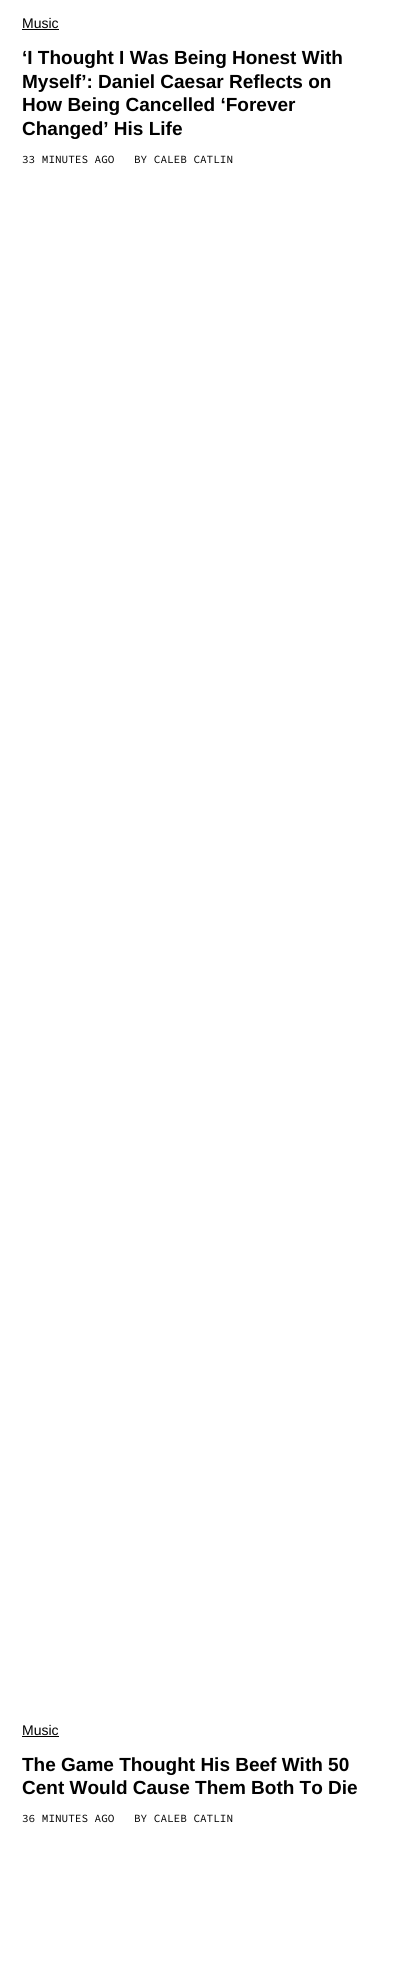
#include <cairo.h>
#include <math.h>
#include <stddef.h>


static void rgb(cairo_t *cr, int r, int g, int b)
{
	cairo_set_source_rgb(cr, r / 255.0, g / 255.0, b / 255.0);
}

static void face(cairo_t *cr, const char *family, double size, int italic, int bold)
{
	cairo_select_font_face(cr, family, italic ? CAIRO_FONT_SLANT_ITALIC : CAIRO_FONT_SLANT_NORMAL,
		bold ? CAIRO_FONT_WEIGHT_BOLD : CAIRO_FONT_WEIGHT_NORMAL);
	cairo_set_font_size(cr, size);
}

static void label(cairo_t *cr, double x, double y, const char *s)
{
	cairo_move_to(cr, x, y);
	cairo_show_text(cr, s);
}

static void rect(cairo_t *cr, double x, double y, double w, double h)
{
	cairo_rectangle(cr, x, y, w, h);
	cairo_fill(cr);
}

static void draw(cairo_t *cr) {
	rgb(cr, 255, 255, 255);
	cairo_paint(cr);
	face(cr, "Liberation Sans", 14, 0, 0);
	rgb(cr, 0, 0, 0);
	label(cr, 22, 28, "Music");
	rect(cr, 22, 29, 37, 1);
	face(cr, "Liberation Sans", 19, 0, 1);
	label(cr, 22, 64, "‘I Thought I Was Being Honest With");
	label(cr, 22, 88, "Myself’: Daniel Caesar Reflects on");
	label(cr, 22, 111, "How Being Cancelled ‘Forever");
	label(cr, 22, 135, "Changed’ His Life");
	face(cr, "Source Code Pro", 11, 0, 0);
	label(cr, 22, 163, "33 MINUTES AGO");
	label(cr, 134, 163, "BY CALEB CATLIN");
	face(cr, "Liberation Sans", 14, 0, 0);
	label(cr, 22, 1735, "Music");
	rect(cr, 22, 1736, 37, 1);
	face(cr, "Liberation Sans", 19, 0, 1);
	label(cr, 22, 1771, "The Game Thought His Beef With 50");
	label(cr, 22, 1794, "Cent Would Cause Them Both To Die");
	face(cr, "Source Code Pro", 11, 0, 0);
	label(cr, 22, 1822, "36 MINUTES AGO");
	label(cr, 134, 1822, "BY CALEB CATLIN");
}

int main(void) {
	cairo_surface_t *surface = cairo_image_surface_create(CAIRO_FORMAT_RGB24, 393, 1985);
	cairo_t *cr = cairo_create(surface);
	cairo_font_options_t *options = cairo_font_options_create();
	cairo_font_options_set_hint_metrics(options, CAIRO_HINT_METRICS_OFF);
	cairo_font_options_set_hint_style(options, CAIRO_HINT_STYLE_NONE);
	cairo_set_font_options(cr, options);
	cairo_set_miter_limit(cr, 4);
	draw(cr);
	cairo_surface_write_to_png(surface, "render.png");
	cairo_font_options_destroy(options);
	cairo_destroy(cr);
	cairo_surface_destroy(surface);
	return 0;
}
